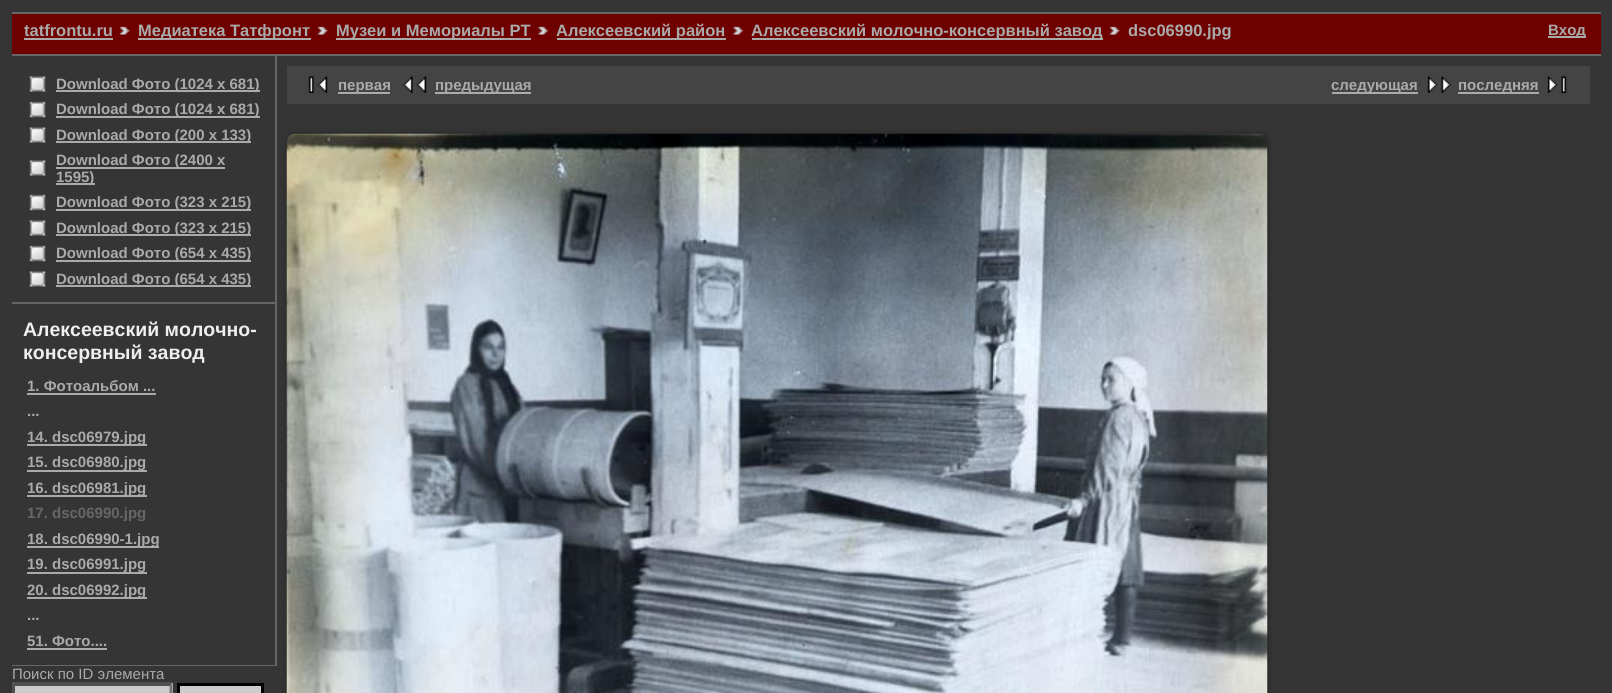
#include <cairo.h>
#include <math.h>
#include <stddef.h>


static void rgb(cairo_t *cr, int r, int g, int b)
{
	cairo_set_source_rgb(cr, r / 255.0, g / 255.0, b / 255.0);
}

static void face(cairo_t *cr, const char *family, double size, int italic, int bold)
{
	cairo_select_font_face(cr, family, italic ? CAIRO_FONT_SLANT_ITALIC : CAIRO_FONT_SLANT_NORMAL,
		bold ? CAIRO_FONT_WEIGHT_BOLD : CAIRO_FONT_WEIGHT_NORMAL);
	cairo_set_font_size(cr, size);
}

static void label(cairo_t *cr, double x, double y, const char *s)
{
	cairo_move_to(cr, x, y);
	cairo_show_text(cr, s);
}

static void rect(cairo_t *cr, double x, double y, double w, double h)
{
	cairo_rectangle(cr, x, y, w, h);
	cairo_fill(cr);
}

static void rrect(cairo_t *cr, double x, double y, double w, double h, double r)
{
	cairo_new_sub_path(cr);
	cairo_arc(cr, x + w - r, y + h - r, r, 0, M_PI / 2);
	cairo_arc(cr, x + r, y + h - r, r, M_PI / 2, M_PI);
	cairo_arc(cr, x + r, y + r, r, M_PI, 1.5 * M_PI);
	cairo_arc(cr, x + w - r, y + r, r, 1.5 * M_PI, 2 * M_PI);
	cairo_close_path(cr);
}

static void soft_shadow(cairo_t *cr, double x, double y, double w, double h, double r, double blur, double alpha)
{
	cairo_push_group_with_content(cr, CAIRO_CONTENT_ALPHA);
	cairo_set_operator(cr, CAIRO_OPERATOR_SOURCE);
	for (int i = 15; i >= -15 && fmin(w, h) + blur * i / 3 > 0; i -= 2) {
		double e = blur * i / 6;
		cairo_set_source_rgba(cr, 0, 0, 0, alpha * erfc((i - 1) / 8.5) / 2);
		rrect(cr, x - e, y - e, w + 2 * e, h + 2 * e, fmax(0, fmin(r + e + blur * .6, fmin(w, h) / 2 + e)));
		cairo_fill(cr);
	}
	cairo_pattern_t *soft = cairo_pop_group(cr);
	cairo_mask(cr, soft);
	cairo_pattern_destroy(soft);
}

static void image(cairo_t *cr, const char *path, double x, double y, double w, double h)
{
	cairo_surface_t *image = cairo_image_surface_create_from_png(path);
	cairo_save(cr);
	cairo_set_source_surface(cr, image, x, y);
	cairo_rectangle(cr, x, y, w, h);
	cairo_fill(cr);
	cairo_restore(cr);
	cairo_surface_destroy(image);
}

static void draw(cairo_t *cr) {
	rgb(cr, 53, 53, 53);
	cairo_paint(cr);
	rgb(cr, 102, 102, 102);
	rect(cr, 12, 12, 1589, 2);
	rect(cr, 12, 54, 1589, 2);
	rgb(cr, 111, 0, 0);
	rect(cr, 12, 14, 1589, 40);
	face(cr, "Liberation Sans", 16.5, 0, 1);
	rgb(cr, 170, 170, 170);
	label(cr, 24, 36, "tatfrontu.ru");
	rect(cr, 24, 38, 89, 2);
	image(cr, "image0.png", 119, 26, 11, 9);
	rect(cr, 138, 38, 173, 2);
	label(cr, 138, 36, "Медиатека Татфронт");
	image(cr, "image1.png", 317, 26, 11, 9);
	rect(cr, 336, 38, 195, 2);
	label(cr, 336, 36, "Музеи и Мемориалы РТ");
	image(cr, "image2.png", 538, 26, 10, 9);
	rect(cr, 557, 38, 169, 2);
	label(cr, 556, 36, "Алексеевский район");
	image(cr, "image2.png", 733, 26, 10, 9);
	rect(cr, 752, 38, 351, 2);
	label(cr, 751, 36, "Алексеевский молочно-консервный завод");
	image(cr, "image1.png", 1109, 26, 11, 9);
	label(cr, 1128, 36, "dsc06990.jpg");
	rect(cr, 1548, 36, 38, 2);
	face(cr, "Liberation Sans", 15, 0, 1);
	label(cr, 1548, 35, "Вход");
	rgb(cr, 102, 102, 102);
	rect(cr, 275, 56, 2, 610);
	rect(cr, 12, 302, 263, 2);
	image(cr, "image3.png", 29, 76, 17, 16);
	rgb(cr, 170, 170, 170);
	rect(cr, 56, 90, 204, 2);
	label(cr, 56, 89, "Download Фото (1024 x 681)");
	image(cr, "image4.png", 29, 101, 17, 17);
	rect(cr, 56, 116, 204, 2);
	label(cr, 56, 114, "Download Фото (1024 x 681)");
	image(cr, "image3.png", 29, 127, 17, 16);
	rect(cr, 56, 141, 195, 2);
	label(cr, 56, 140, "Download Фото (200 x 133)");
	image(cr, "image3.png", 29, 160, 17, 16);
	rect(cr, 56, 167, 169, 2);
	label(cr, 56, 165, "Download Фото (2400 x");
	rect(cr, 56, 183, 39, 2);
	label(cr, 56, 182, "1595)");
	image(cr, "image4.png", 29, 194, 17, 17);
	rect(cr, 56, 209, 195, 2);
	label(cr, 56, 207, "Download Фото (323 x 215)");
	image(cr, "image3.png", 29, 220, 17, 16);
	rect(cr, 56, 234, 195, 2);
	label(cr, 56, 233, "Download Фото (323 x 215)");
	image(cr, "image4.png", 29, 245, 17, 17);
	rect(cr, 56, 260, 195, 2);
	label(cr, 56, 258, "Download Фото (654 x 435)");
	image(cr, "image3.png", 29, 271, 17, 16);
	rect(cr, 56, 285, 195, 2);
	label(cr, 56, 284, "Download Фото (654 x 435)");
	rgb(cr, 102, 102, 102);
	rect(cr, 12, 665, 263, 1);
	face(cr, "Liberation Sans", 19.5, 0, 1);
	rgb(cr, 238, 238, 238);
	label(cr, 23, 336, "Алексеевский молочно-");
	label(cr, 23, 359, "консервный завод");
	face(cr, "Liberation Sans", 15, 0, 1);
	rgb(cr, 170, 170, 170);
	label(cr, 27, 391, "1. Фотоальбом ...");
	rect(cr, 27, 393, 129, 2);
	label(cr, 27, 416, "...");
	rect(cr, 27, 444, 120, 2);
	label(cr, 27, 442, "14. dsc06979.jpg");
	rect(cr, 27, 470, 120, 2);
	label(cr, 27, 467, "15. dsc06980.jpg");
	rect(cr, 27, 495, 120, 2);
	label(cr, 27, 493, "16. dsc06981.jpg");
	rgb(cr, 102, 102, 102);
	label(cr, 27, 518, "17. dsc06990.jpg");
	rgb(cr, 170, 170, 170);
	rect(cr, 27, 546, 132, 2);
	label(cr, 27, 544, "18. dsc06990-1.jpg");
	rect(cr, 27, 572, 120, 2);
	label(cr, 27, 569, "19. dsc06991.jpg");
	rect(cr, 27, 597, 120, 2);
	label(cr, 27, 595, "20. dsc06992.jpg");
	label(cr, 27, 620, "...");
	label(cr, 27, 646, "51. Фото....");
	rect(cr, 27, 648, 80, 2);
	face(cr, "Liberation Sans", 15, 0, 0);
	label(cr, 12, 679, "Поиск по ID элемента");
	rgb(cr, 204, 204, 204);
	rect(cr, 12, 683, 161, 10);
	rgb(cr, 79, 79, 79);
	cairo_new_path(cr);
	cairo_move_to(cr, 12, 682);
	cairo_line_to(cr, 172, 682);
	cairo_line_to(cr, 170, 686);
	cairo_line_to(cr, 15, 686);
	cairo_close_path(cr);
	cairo_fill(cr);
	rgb(cr, 118, 118, 118);
	cairo_new_path(cr);
	cairo_move_to(cr, 172.5, 682.5);
	cairo_line_to(cr, 172.5, 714);
	cairo_line_to(cr, 169.5, 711);
	cairo_line_to(cr, 169.5, 685.5);
	cairo_close_path(cr);
	cairo_fill(cr);
	rgb(cr, 79, 79, 79);
	cairo_new_path(cr);
	cairo_move_to(cr, 12, 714);
	cairo_line_to(cr, 12, 682.5);
	cairo_line_to(cr, 15, 685.5);
	cairo_line_to(cr, 15, 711);
	cairo_close_path(cr);
	cairo_fill(cr);
	rgb(cr, 204, 204, 204);
	cairo_rectangle(cr, 178.5, 684.5, 84, 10);
	cairo_fill_preserve(cr);
	rgb(cr, 0, 0, 0);
	cairo_set_line_width(cr, 3);
	cairo_stroke(cr);
	rgb(cr, 68, 68, 68);
	rect(cr, 287, 66, 1303, 38);
	image(cr, "image5.png", 308, 76, 20, 17);
	rgb(cr, 170, 170, 170);
	rect(cr, 338, 92, 52, 2);
	face(cr, "Liberation Sans", 15, 0, 1);
	label(cr, 338, 90, "первая");
	image(cr, "image6.png", 403, 76, 24, 17);
	rect(cr, 435, 92, 96, 2);
	label(cr, 435, 90, "предыдущая");
	rect(cr, 1332, 92, 86, 2);
	label(cr, 1331, 90, "следующая");
	image(cr, "image7.png", 1427, 76, 24, 17);
	rect(cr, 1458, 92, 81, 2);
	label(cr, 1458, 90, "последняя");
	image(cr, "image8.png", 1547, 76, 20, 17);
	rgb(cr, 34, 34, 34);
	soft_shadow(cr, 287, 134, 981, 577, 9, 3, 1);
	image(cr, "image9.png", 286, 133, 982, 560);
}

int main(void) {
	cairo_surface_t *surface = cairo_image_surface_create(CAIRO_FORMAT_RGB24, 1612, 693);
	cairo_t *cr = cairo_create(surface);
	cairo_font_options_t *options = cairo_font_options_create();
	cairo_font_options_set_hint_metrics(options, CAIRO_HINT_METRICS_OFF);
	cairo_font_options_set_hint_style(options, CAIRO_HINT_STYLE_NONE);
	cairo_set_font_options(cr, options);
	cairo_set_miter_limit(cr, 4);
	draw(cr);
	cairo_surface_write_to_png(surface, "render.png");
	cairo_font_options_destroy(options);
	cairo_destroy(cr);
	cairo_surface_destroy(surface);
	return 0;
}
